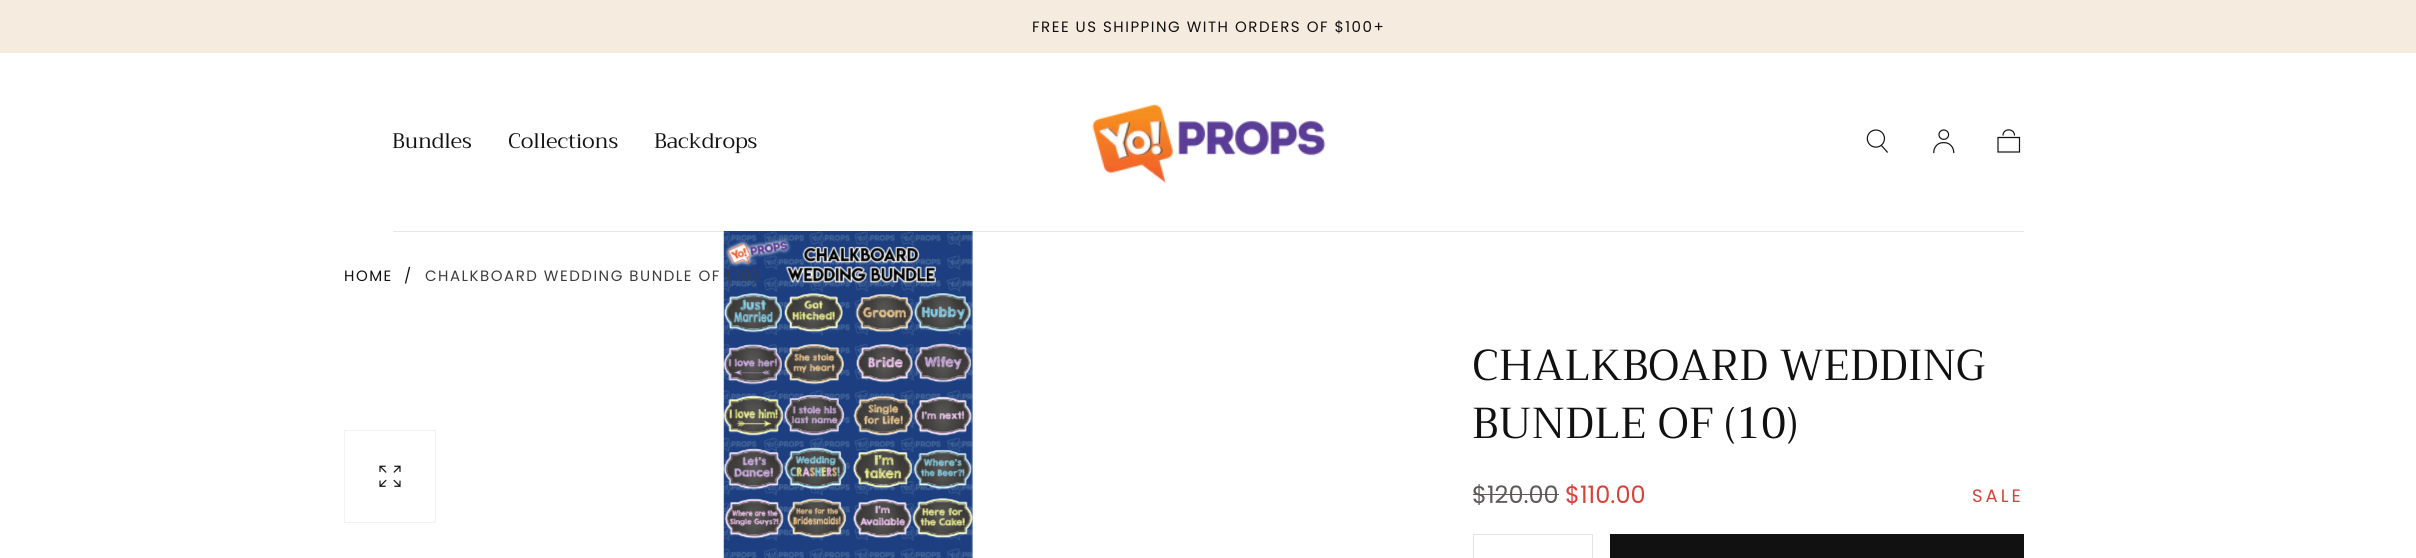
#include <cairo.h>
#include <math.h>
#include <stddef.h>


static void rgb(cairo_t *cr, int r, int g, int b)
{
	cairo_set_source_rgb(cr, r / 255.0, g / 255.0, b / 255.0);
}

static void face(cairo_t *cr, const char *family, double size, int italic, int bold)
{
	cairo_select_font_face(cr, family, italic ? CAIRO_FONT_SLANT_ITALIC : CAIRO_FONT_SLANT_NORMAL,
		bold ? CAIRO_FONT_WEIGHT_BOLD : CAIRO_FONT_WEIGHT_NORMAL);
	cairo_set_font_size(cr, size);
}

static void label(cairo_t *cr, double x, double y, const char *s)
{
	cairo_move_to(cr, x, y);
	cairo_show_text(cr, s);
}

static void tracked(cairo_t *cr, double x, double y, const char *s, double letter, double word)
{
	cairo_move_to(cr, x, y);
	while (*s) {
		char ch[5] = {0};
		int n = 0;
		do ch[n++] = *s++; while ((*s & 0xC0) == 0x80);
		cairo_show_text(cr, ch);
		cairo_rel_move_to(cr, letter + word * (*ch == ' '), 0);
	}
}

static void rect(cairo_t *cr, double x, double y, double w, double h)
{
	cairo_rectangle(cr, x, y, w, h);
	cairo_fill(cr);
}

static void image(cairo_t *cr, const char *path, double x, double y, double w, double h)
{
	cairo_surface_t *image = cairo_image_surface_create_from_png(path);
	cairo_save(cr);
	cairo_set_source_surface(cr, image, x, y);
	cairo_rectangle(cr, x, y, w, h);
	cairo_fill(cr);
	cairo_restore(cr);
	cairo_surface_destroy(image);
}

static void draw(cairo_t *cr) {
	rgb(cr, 255, 255, 255);
	cairo_paint(cr);
	rgb(cr, 245, 235, 223);
	rect(cr, 0, 0, 2416, 53);
	face(cr, "Poppins", 15, 0, 0);
	rgb(cr, 17, 17, 17);
	tracked(cr, 1032, 32, "FREE US SHIPPING WITH ORDERS OF $100+", 1.5, 0);
	face(cr, "Trirong", 21, 0, 0);
	label(cr, 392, 148, "Bundles");
	label(cr, 508, 148, "Collections");
	label(cr, 654, 148, "Backdrops");
	image(cr, "image0.png", 1092, 104, 234, 79);
	image(cr, "image1.png", 1866, 129, 22, 24);
	image(cr, "image2.png", 1933, 129, 22, 25);
	cairo_new_path(cr);
	cairo_move_to(cr, 2019.5, 152);
	cairo_line_to(cr, 1998, 152);
	cairo_line_to(cr, 1998, 137.5);
	cairo_line_to(cr, 2019.5, 137.5);
	cairo_close_path(cr);
	cairo_move_to(cr, 2014.5, 135.5);
	cairo_curve_to(cr, 2014.5, 128, 2003, 128, 2003, 135.5);
	cairo_set_line_width(cr, 1.2);
	cairo_stroke(cr);
	image(cr, "image4.png", 723, 231, 250, 327);
	cairo_set_source_rgba(cr, 0.067, 0.067, 0.067, 0.1);
	rect(cr, 393, 231, 1631, 1);
	cairo_rectangle(cr, 344.5, 430.5, 91, 92);
	rgb(cr, 242, 242, 242);
	cairo_set_line_width(cr, 1);
	cairo_stroke(cr);
	image(cr, "image3.png", 379, 465, 22, 22);
	face(cr, "Poppins", 15, 0, 0);
	rgb(cr, 17, 17, 17);
	tracked(cr, 344, 281, "HOME", 1.5, 0);
	tracked(cr, 404, 281, "/", 1.5, 0);
	rgb(cr, 60, 61, 62);
	tracked(cr, 425, 281, "CHALKBOARD WEDDING BUNDLE OF (10)", 1.5, 0);
	face(cr, "Trirong", 43.25, 0, 0);
	rgb(cr, 17, 17, 17);
	label(cr, 1472, 380, "CHALKBOARD WEDDING");
	label(cr, 1472, 438, "BUNDLE OF (10)");
	face(cr, "Poppins", 24, 0, 0);
	rgb(cr, 94, 90, 89);
	label(cr, 1472, 503, "$120.00");
	rect(cr, 1473, 494, 86, 1);
	rgb(cr, 216, 67, 57);
	label(cr, 1565, 503, "$110.00");
	face(cr, "Poppins", 18, 0, 0);
	tracked(cr, 1972, 502, "SALE", 3, 0);
	cairo_rectangle(cr, 1473.5, 534.5, 119, 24);
	rgb(cr, 230, 226, 225);
	cairo_stroke(cr);
	rgb(cr, 17, 17, 17);
	rect(cr, 1610, 534, 414, 24);
}

int main(void) {
	cairo_surface_t *surface = cairo_image_surface_create(CAIRO_FORMAT_RGB24, 2416, 558);
	cairo_t *cr = cairo_create(surface);
	cairo_font_options_t *options = cairo_font_options_create();
	cairo_font_options_set_hint_metrics(options, CAIRO_HINT_METRICS_OFF);
	cairo_font_options_set_hint_style(options, CAIRO_HINT_STYLE_NONE);
	cairo_set_font_options(cr, options);
	cairo_set_miter_limit(cr, 4);
	draw(cr);
	cairo_surface_write_to_png(surface, "render.png");
	cairo_font_options_destroy(options);
	cairo_destroy(cr);
	cairo_surface_destroy(surface);
	return 0;
}
